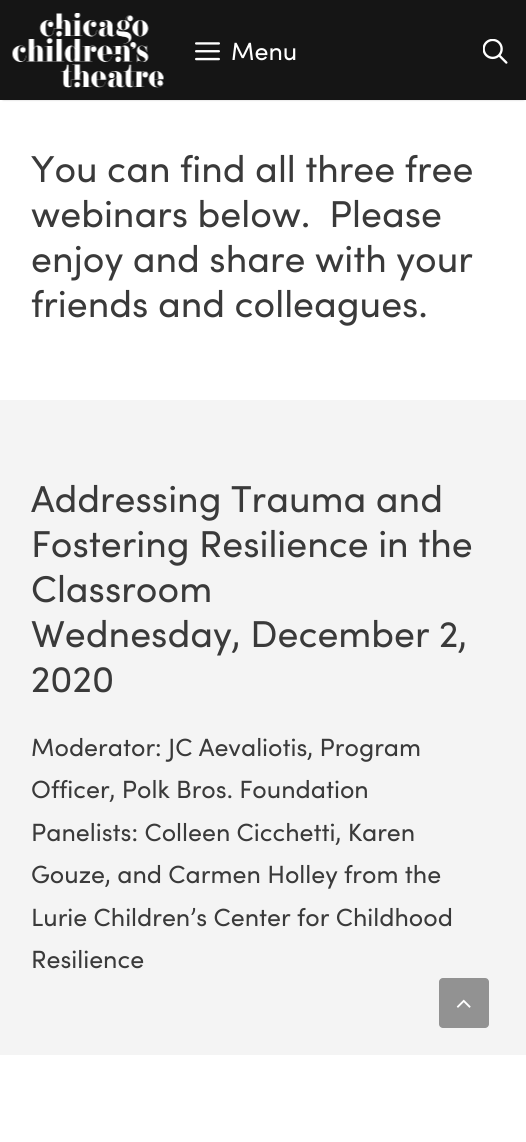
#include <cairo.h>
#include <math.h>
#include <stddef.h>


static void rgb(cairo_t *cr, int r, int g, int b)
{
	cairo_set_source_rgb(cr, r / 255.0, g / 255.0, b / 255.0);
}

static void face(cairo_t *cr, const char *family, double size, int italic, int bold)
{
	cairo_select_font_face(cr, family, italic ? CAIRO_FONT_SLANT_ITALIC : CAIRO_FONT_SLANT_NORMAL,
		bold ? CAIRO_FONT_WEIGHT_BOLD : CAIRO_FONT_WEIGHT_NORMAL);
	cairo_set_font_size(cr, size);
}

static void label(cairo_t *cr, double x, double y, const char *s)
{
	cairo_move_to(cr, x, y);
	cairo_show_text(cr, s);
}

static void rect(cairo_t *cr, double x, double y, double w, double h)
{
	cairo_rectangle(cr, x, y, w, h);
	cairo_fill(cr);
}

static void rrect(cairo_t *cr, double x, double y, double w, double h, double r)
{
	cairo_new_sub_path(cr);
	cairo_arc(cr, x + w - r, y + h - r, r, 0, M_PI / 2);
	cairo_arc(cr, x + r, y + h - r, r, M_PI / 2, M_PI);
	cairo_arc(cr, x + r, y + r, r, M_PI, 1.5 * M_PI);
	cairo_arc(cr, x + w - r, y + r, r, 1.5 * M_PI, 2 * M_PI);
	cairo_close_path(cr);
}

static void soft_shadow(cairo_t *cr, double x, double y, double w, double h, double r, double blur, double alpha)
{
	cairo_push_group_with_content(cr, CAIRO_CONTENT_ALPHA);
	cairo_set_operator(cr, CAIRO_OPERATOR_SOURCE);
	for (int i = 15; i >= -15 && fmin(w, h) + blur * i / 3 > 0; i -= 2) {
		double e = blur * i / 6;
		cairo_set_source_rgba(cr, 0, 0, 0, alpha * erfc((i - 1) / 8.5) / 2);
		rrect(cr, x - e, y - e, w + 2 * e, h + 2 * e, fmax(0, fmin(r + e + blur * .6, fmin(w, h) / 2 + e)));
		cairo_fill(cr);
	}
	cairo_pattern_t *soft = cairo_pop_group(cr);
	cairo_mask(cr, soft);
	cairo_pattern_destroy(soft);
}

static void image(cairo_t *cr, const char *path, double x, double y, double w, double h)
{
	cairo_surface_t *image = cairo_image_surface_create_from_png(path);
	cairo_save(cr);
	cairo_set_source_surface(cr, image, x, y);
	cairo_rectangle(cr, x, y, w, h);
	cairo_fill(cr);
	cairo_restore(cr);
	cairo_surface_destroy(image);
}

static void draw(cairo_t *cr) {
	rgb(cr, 255, 255, 255);
	cairo_paint(cr);
	rgb(cr, 0, 0, 0);
	soft_shadow(cr, 3, 5, 521, 95, 0, 1, 0.2);
	rgb(cr, 21, 21, 21);
	rect(cr, 0, 0, 526, 100);
	image(cr, "image0.png", 12, 13, 152, 75);
	image(cr, "image1.png", 195, 42, 25, 19);
	face(cr, "Sofia", 25, 0, 0);
	rgb(cr, 255, 255, 255);
	label(cr, 231, 60, "Menu");
	image(cr, "image2.png", 483, 39, 25, 25);
	face(cr, "Sofia", 37.5, 0, 0);
	rgb(cr, 58, 58, 58);
	label(cr, 31, 182, "You can find all three free");
	label(cr, 31, 227, "webinars below.  Please");
	label(cr, 31, 272, "enjoy and share with your");
	label(cr, 31, 317, "friends and colleagues.");
	rgb(cr, 244, 244, 244);
	rect(cr, 0, 400, 526, 655);
	rgb(cr, 58, 58, 58);
	label(cr, 31, 512, "Addressing Trauma and");
	label(cr, 31, 557, "Fostering Resilience in the");
	label(cr, 31, 602, "Classroom");
	label(cr, 31, 647, "Wednesday, December 2,");
	label(cr, 31, 692, "2020");
	face(cr, "Sofia", 25, 0, 0);
	label(cr, 31, 756, "Moderator: JC Aevaliotis, Program");
	label(cr, 31, 798, "Officer, Polk Bros. Foundation");
	label(cr, 31, 841, "Panelists: Colleen Cicchetti, Karen");
	label(cr, 31, 883, "Gouze, and Carmen Holley from the");
	label(cr, 31, 926, "Lurie Children’s Center for Childhood");
	label(cr, 31, 968, "Resilience");
	rgb(cr, 146, 146, 146);
	rrect(cr, 439, 978, 50, 50, 4);
	cairo_fill(cr);
	image(cr, "image3.png", 456, 999, 15, 9);
}

int main(void) {
	cairo_surface_t *surface = cairo_image_surface_create(CAIRO_FORMAT_RGB24, 526, 1142);
	cairo_t *cr = cairo_create(surface);
	cairo_font_options_t *options = cairo_font_options_create();
	cairo_font_options_set_hint_metrics(options, CAIRO_HINT_METRICS_OFF);
	cairo_font_options_set_hint_style(options, CAIRO_HINT_STYLE_NONE);
	cairo_set_font_options(cr, options);
	cairo_set_miter_limit(cr, 4);
	draw(cr);
	cairo_surface_write_to_png(surface, "render.png");
	cairo_font_options_destroy(options);
	cairo_destroy(cr);
	cairo_surface_destroy(surface);
	return 0;
}
